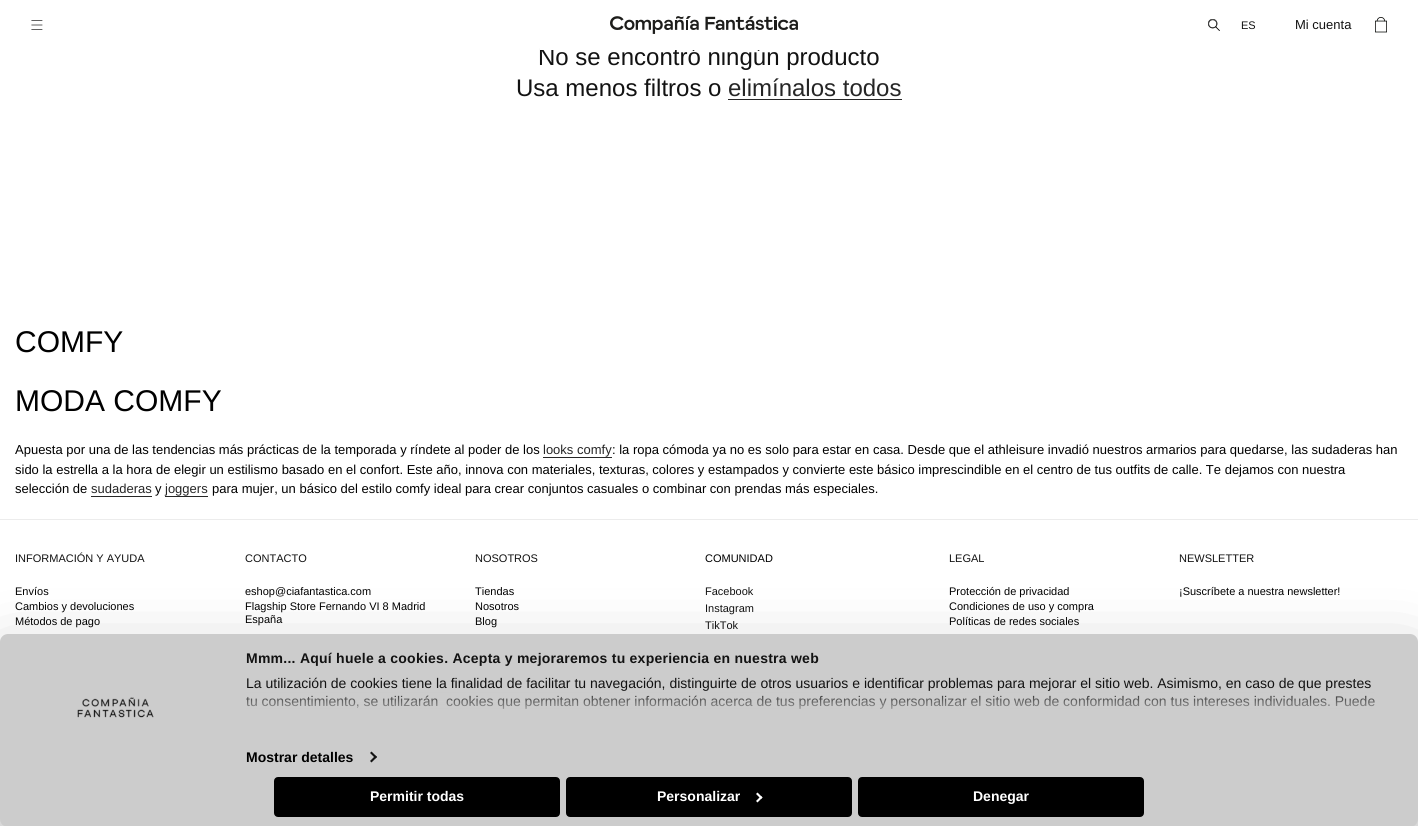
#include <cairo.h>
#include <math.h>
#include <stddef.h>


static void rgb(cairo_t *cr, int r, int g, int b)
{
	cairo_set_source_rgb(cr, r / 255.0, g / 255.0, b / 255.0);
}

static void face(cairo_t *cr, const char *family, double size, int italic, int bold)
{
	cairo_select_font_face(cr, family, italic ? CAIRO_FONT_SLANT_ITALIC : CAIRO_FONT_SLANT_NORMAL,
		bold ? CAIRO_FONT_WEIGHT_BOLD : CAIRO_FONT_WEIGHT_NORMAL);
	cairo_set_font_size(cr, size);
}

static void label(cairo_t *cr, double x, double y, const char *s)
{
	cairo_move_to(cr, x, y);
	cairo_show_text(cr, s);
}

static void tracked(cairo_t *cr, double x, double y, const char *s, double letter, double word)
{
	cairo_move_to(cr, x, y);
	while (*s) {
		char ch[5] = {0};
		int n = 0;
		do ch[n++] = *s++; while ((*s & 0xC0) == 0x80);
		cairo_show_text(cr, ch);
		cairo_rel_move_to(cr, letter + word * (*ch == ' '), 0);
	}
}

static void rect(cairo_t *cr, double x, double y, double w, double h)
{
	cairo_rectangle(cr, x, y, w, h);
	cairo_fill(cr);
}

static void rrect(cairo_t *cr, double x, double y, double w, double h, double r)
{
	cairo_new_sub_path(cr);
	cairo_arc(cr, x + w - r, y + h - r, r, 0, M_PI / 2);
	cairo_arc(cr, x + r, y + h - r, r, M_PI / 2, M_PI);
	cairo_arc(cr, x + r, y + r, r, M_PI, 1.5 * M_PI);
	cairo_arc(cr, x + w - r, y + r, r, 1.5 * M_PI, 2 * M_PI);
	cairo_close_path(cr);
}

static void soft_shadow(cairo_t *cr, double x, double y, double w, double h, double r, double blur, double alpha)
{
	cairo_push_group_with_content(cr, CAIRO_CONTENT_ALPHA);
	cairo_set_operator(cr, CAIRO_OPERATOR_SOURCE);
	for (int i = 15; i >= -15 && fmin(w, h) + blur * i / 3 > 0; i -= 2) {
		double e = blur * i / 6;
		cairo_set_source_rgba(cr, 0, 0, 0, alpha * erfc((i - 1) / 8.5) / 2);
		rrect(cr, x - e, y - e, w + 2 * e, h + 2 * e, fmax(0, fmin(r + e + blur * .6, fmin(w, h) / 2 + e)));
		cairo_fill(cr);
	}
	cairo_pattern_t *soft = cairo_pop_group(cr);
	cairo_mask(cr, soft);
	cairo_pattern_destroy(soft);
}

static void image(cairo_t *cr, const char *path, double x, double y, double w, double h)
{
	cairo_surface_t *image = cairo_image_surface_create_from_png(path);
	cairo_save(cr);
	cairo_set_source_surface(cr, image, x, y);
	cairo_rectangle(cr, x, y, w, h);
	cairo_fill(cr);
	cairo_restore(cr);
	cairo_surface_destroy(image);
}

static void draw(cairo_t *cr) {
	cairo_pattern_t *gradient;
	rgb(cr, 255, 255, 255);
	cairo_paint(cr);
	face(cr, "Liberation Sans", 24, 0, 0);
	rgb(cr, 18, 18, 18);
	label(cr, 538, 65, "No se encontró ningún producto");
	rgb(cr, 255, 255, 255);
	rect(cr, 540, 47, 324, 3);
	image(cr, "image0.png", 31, 20, 12, 10);
	image(cr, "image1.png", 610, 16, 188, 18);
	image(cr, "image2.png", 1208, 19, 12, 12);
	image(cr, "image3.png", 1208, 19, 12, 12);
	face(cr, "Liberation Sans", 11, 0, 0);
	rgb(cr, 18, 18, 18);
	label(cr, 1241, 29, "ES");
	face(cr, "Liberation Sans", 13, 0, 0);
	label(cr, 1295, 29, "Mi cuenta");
	image(cr, "image4.png", 1375, 17, 12, 16);
	face(cr, "Liberation Sans", 24, 0, 0);
	label(cr, 516, 96, "Usa menos filtros o");
	rgb(cr, 38, 38, 38);
	label(cr, 728, 96, "elimínalos todos");
	rect(cr, 728, 99, 174, 1);
	face(cr, "Liberation Sans", 30, 0, 0);
	rgb(cr, 0, 0, 0);
	label(cr, 15, 352, "COMFY");
	label(cr, 15, 411, "MODA COMFY");
	face(cr, "Liberation Sans", 13, 0, 0);
	label(cr, 15, 454, "Apuesta por una de las tendencias más prácticas de la temporada y ríndete al poder de los");
	rgb(cr, 38, 38, 38);
	label(cr, 543, 454, "looks comfy");
	rect(cr, 543, 457, 69, 1);
	rgb(cr, 0, 0, 0);
	label(cr, 612, 454, ": la ropa cómoda ya no es solo para estar en casa. Desde que el athleisure invadió nuestros armarios para quedarse, las sudaderas han");
	label(cr, 15, 474, "sido la estrella a la hora de elegir un estilismo basado en el confort. Este año, innova con materiales, texturas, colores y estampados y convierte este básico imprescindible en el centro de tus outfits de calle. Te dejamos con nuestra");
	label(cr, 15, 493, "selección de");
	rgb(cr, 38, 38, 38);
	label(cr, 91, 493, "sudaderas");
	rect(cr, 91, 496, 61, 1);
	rgb(cr, 0, 0, 0);
	label(cr, 155, 493, "y");
	rgb(cr, 38, 38, 38);
	label(cr, 165, 493, "joggers");
	rect(cr, 165, 496, 43, 1);
	rgb(cr, 0, 0, 0);
	label(cr, 212, 493, "para mujer, un básico del estilo comfy ideal para crear conjuntos casuales o combinar con prendas más especiales.");
	rgb(cr, 236, 236, 236);
	rect(cr, 0, 519, 1418, 1);
	face(cr, "Liberation Sans", 11, 0, 0);
	rgb(cr, 18, 18, 18);
	label(cr, 15, 562, "INFORMACIÓN Y AYUDA");
	rgb(cr, 0, 0, 0);
	label(cr, 15, 595, "Envíos");
	label(cr, 15, 610, "Cambios y devoluciones");
	label(cr, 15, 625, "Métodos de pago");
	rgb(cr, 18, 18, 18);
	label(cr, 245, 562, "CONTACTO");
	rgb(cr, 0, 0, 0);
	label(cr, 245, 595, "eshop@ciafantastica.com");
	label(cr, 245, 610, "Flagship Store Fernando VI 8 Madrid");
	label(cr, 245, 623, "España");
	rgb(cr, 18, 18, 18);
	label(cr, 475, 562, "NOSOTROS");
	rgb(cr, 0, 0, 0);
	label(cr, 475, 595, "Tiendas");
	label(cr, 475, 610, "Nosotros");
	label(cr, 475, 625, "Blog");
	label(cr, 705, 562, "COMUNIDAD");
	rgb(cr, 18, 18, 18);
	label(cr, 705, 595, "Facebook");
	label(cr, 705, 612, "Instagram");
	label(cr, 705, 629, "TikTok");
	label(cr, 949, 562, "LEGAL");
	rgb(cr, 0, 0, 0);
	label(cr, 949, 595, "Protección de privacidad");
	label(cr, 949, 610, "Condiciones de uso y compra");
	label(cr, 949, 625, "Políticas de redes sociales");
	rgb(cr, 18, 18, 18);
	label(cr, 1179, 562, "NEWSLETTER");
	rgb(cr, 0, 0, 0);
	label(cr, 1179, 595, "¡Suscríbete a nuestra newsletter!");
	rgb(cr, 0, 0, 0);
	soft_shadow(cr, 0, 664, 1418, 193, 8, 35, 0.3);
	rgb(cr, 204, 204, 204);
	rrect(cr, 0, 634, 1418, 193, 8);
	cairo_fill(cr);
	image(cr, "image5.png", 77, 697, 77, 21);
	face(cr, "Liberation Sans", 14, 0, 1);
	rgb(cr, 18, 18, 18);
	tracked(cr, 246, 663, "Mmm... Aquí huele a cookies. Acepta y mejoraremos tu experiencia en nuestra web", 0.25, 0);
	face(cr, "Liberation Sans", 14, 0, 0);
	label(cr, 246, 688, "La utilización de cookies tiene la finalidad de facilitar tu navegación, distinguirte de otros usuarios e identificar problemas para mejorar el sitio web. Asimismo, en caso de que prestes");
	label(cr, 246, 706, "tu consentimiento, se utilizarán  cookies que permitan obtener información acerca de tus preferencias y personalizar el sitio web de conformidad con tus intereses individuales. Puede");
	gradient = cairo_pattern_create_linear(815, 734, 815, 689);
	cairo_pattern_add_color_stop_rgba(gradient, 0, 0.8, 0.8, 0.8, 1);
	cairo_pattern_add_color_stop_rgba(gradient, 0.5, 0.8, 0.8, 0.8, 0.8);
	cairo_pattern_add_color_stop_rgba(gradient, 1, 0.8, 0.8, 0.8, 0);
	cairo_set_source(cr, gradient);
	cairo_pattern_destroy(gradient);
	rect(cr, 246, 690, 1129, 19);
	face(cr, "Liberation Sans", 14, 0, 1);
	rgb(cr, 0, 0, 0);
	label(cr, 246, 762, "Mostrar detalles");
	rgb(cr, 20, 20, 20);
	cairo_new_path(cr);
	cairo_move_to(cr, 371.5, 751.5);
	cairo_line_to(cr, 377, 757);
	cairo_line_to(cr, 375.5, 758.5);
	cairo_line_to(cr, 370, 753);
	cairo_close_path(cr);
	cairo_fill(cr);
	cairo_new_path(cr);
	cairo_move_to(cr, 375.5, 755.5);
	cairo_line_to(cr, 377, 757);
	cairo_line_to(cr, 371.5, 762.5);
	cairo_line_to(cr, 370, 761);
	cairo_close_path(cr);
	cairo_fill(cr);
	rgb(cr, 0, 0, 0);
	rrect(cr, 275, 778, 284, 38, 3);
	cairo_fill_preserve(cr);
	cairo_stroke(cr);
	rgb(cr, 255, 255, 255);
	label(cr, 370, 801, "Permitir todas");
	rgb(cr, 0, 0, 0);
	rrect(cr, 567, 778, 284, 38, 3);
	cairo_fill_preserve(cr);
	cairo_stroke(cr);
	rgb(cr, 255, 255, 255);
	label(cr, 657, 801, "Personalizar");
	cairo_new_path(cr);
	cairo_move_to(cr, 757.5, 792.5);
	cairo_line_to(cr, 762.5, 797.5);
	cairo_line_to(cr, 761, 799);
	cairo_line_to(cr, 756, 794);
	cairo_close_path(cr);
	cairo_fill(cr);
	cairo_new_path(cr);
	cairo_move_to(cr, 761, 796);
	cairo_line_to(cr, 762.5, 797.5);
	cairo_line_to(cr, 757.5, 802.5);
	cairo_line_to(cr, 756, 801);
	cairo_close_path(cr);
	cairo_fill(cr);
	rgb(cr, 0, 0, 0);
	rrect(cr, 859, 778, 284, 38, 3);
	cairo_fill_preserve(cr);
	cairo_stroke(cr);
	rgb(cr, 255, 255, 255);
	label(cr, 973, 801, "Denegar");
}

int main(void) {
	cairo_surface_t *surface = cairo_image_surface_create(CAIRO_FORMAT_RGB24, 1418, 826);
	cairo_t *cr = cairo_create(surface);
	cairo_font_options_t *options = cairo_font_options_create();
	cairo_font_options_set_hint_metrics(options, CAIRO_HINT_METRICS_OFF);
	cairo_font_options_set_hint_style(options, CAIRO_HINT_STYLE_NONE);
	cairo_set_font_options(cr, options);
	cairo_set_miter_limit(cr, 4);
	draw(cr);
	cairo_surface_write_to_png(surface, "render.png");
	cairo_font_options_destroy(options);
	cairo_destroy(cr);
	cairo_surface_destroy(surface);
	return 0;
}
